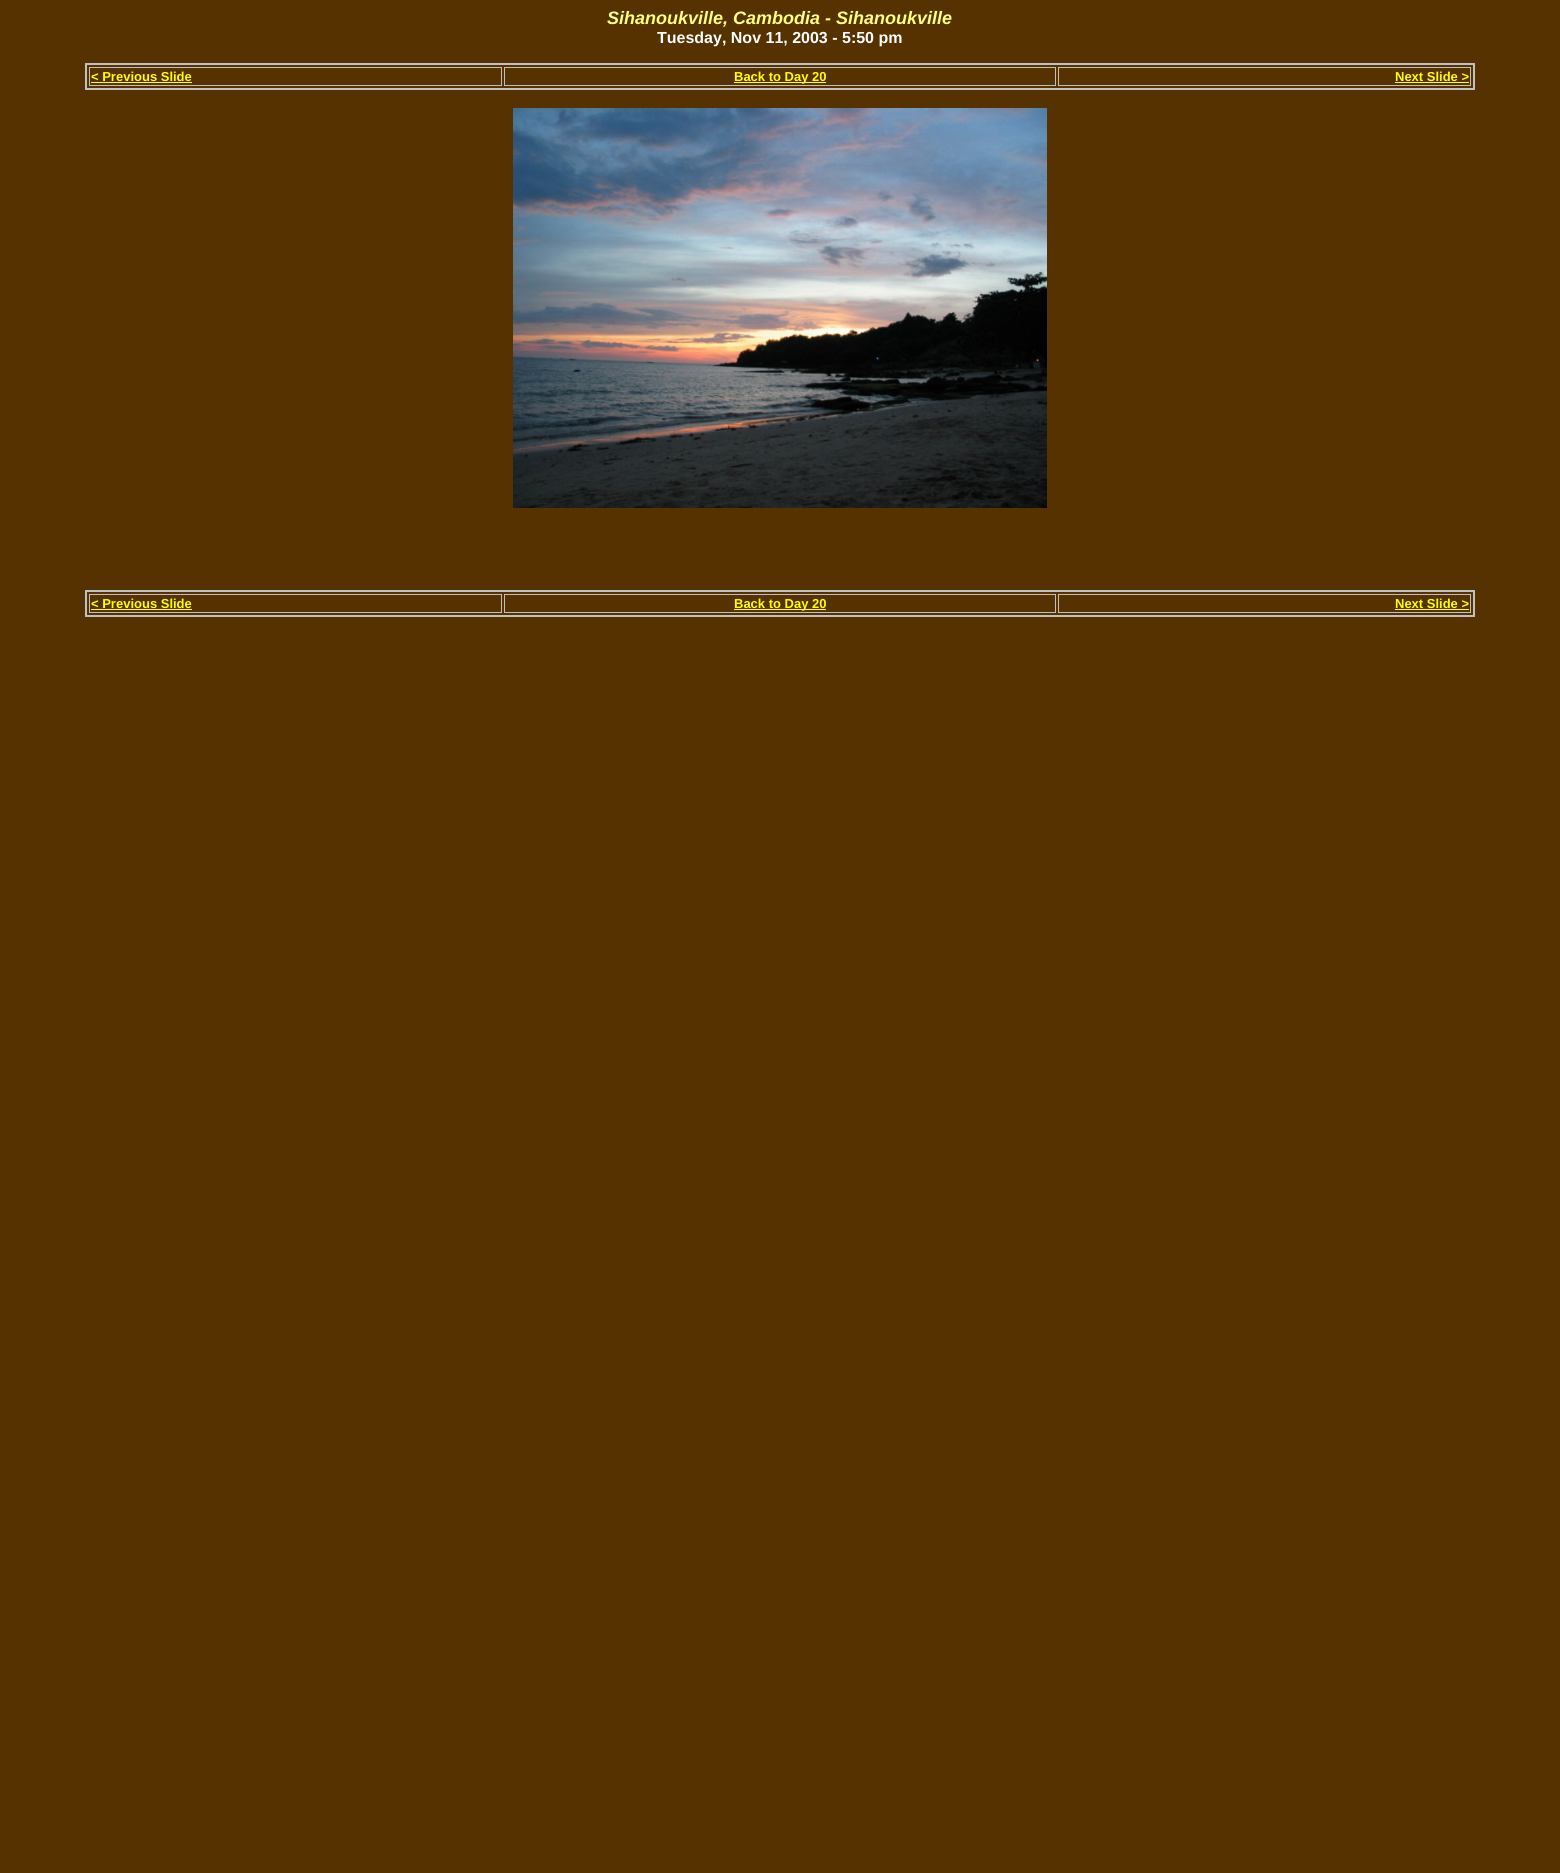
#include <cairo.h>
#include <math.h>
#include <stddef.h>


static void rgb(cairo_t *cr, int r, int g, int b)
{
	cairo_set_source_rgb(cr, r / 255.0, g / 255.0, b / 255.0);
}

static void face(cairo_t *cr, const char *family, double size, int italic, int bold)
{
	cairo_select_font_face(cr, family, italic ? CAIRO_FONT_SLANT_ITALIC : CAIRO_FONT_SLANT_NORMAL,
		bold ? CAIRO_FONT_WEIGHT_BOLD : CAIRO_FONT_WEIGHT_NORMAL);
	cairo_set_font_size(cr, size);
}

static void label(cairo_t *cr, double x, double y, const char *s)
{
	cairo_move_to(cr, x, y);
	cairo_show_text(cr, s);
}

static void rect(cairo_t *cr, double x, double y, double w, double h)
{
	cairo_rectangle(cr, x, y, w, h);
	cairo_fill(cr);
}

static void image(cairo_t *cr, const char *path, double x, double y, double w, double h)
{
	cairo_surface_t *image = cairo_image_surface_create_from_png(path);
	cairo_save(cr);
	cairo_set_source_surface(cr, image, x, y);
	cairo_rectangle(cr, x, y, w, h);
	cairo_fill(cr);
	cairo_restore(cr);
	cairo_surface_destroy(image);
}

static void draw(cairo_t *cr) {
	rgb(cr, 85, 50, 0);
	cairo_paint(cr);
	face(cr, "Liberation Sans", 18, 1, 1);
	rgb(cr, 255, 255, 128);
	label(cr, 607, 24, "Sihanoukville, Cambodia - Sihanoukville");
	face(cr, "Liberation Sans", 16, 0, 1);
	rgb(cr, 255, 255, 255);
	label(cr, 657, 43, "Tuesday, Nov 11, 2003 - 5:50 pm");
	cairo_rectangle(cr, 86, 64, 1388, 25);
	rgb(cr, 192, 192, 192);
	cairo_stroke(cr);
	cairo_rectangle(cr, 89.5, 67.5, 412, 18);
	cairo_set_line_width(cr, 1);
	cairo_stroke(cr);
	face(cr, "Liberation Sans", 13, 0, 1);
	rgb(cr, 255, 255, 0);
	label(cr, 91, 81, "< Previous Slide");
	rect(cr, 91, 82, 101, 1);
	cairo_rectangle(cr, 504.5, 67.5, 551, 18);
	rgb(cr, 192, 192, 192);
	cairo_stroke(cr);
	rgb(cr, 255, 255, 0);
	rect(cr, 734, 82, 92, 1);
	label(cr, 734, 81, "Back to Day 20");
	cairo_rectangle(cr, 1058.5, 67.5, 412, 18);
	rgb(cr, 192, 192, 192);
	cairo_stroke(cr);
	rgb(cr, 255, 255, 0);
	label(cr, 1395, 81, "Next Slide >");
	rect(cr, 1395, 82, 74, 1);
	image(cr, "image0.png", 513, 108, 534, 400);
	cairo_rectangle(cr, 86, 591, 1388, 25);
	rgb(cr, 192, 192, 192);
	cairo_set_line_width(cr, 2);
	cairo_stroke(cr);
	cairo_rectangle(cr, 89.5, 594.5, 412, 18);
	cairo_set_line_width(cr, 1);
	cairo_stroke(cr);
	rgb(cr, 255, 255, 0);
	label(cr, 91, 608, "< Previous Slide");
	rect(cr, 91, 609, 101, 1);
	cairo_rectangle(cr, 504.5, 594.5, 551, 18);
	rgb(cr, 192, 192, 192);
	cairo_stroke(cr);
	rgb(cr, 255, 255, 0);
	rect(cr, 734, 609, 92, 1);
	label(cr, 734, 608, "Back to Day 20");
	cairo_rectangle(cr, 1058.5, 594.5, 412, 18);
	rgb(cr, 192, 192, 192);
	cairo_stroke(cr);
	rgb(cr, 255, 255, 0);
	label(cr, 1395, 608, "Next Slide >");
	rect(cr, 1395, 609, 74, 1);
}

int main(void) {
	cairo_surface_t *surface = cairo_image_surface_create(CAIRO_FORMAT_RGB24, 1560, 1873);
	cairo_t *cr = cairo_create(surface);
	cairo_font_options_t *options = cairo_font_options_create();
	cairo_font_options_set_hint_metrics(options, CAIRO_HINT_METRICS_OFF);
	cairo_font_options_set_hint_style(options, CAIRO_HINT_STYLE_NONE);
	cairo_set_font_options(cr, options);
	cairo_set_miter_limit(cr, 4);
	draw(cr);
	cairo_surface_write_to_png(surface, "render.png");
	cairo_font_options_destroy(options);
	cairo_destroy(cr);
	cairo_surface_destroy(surface);
	return 0;
}
